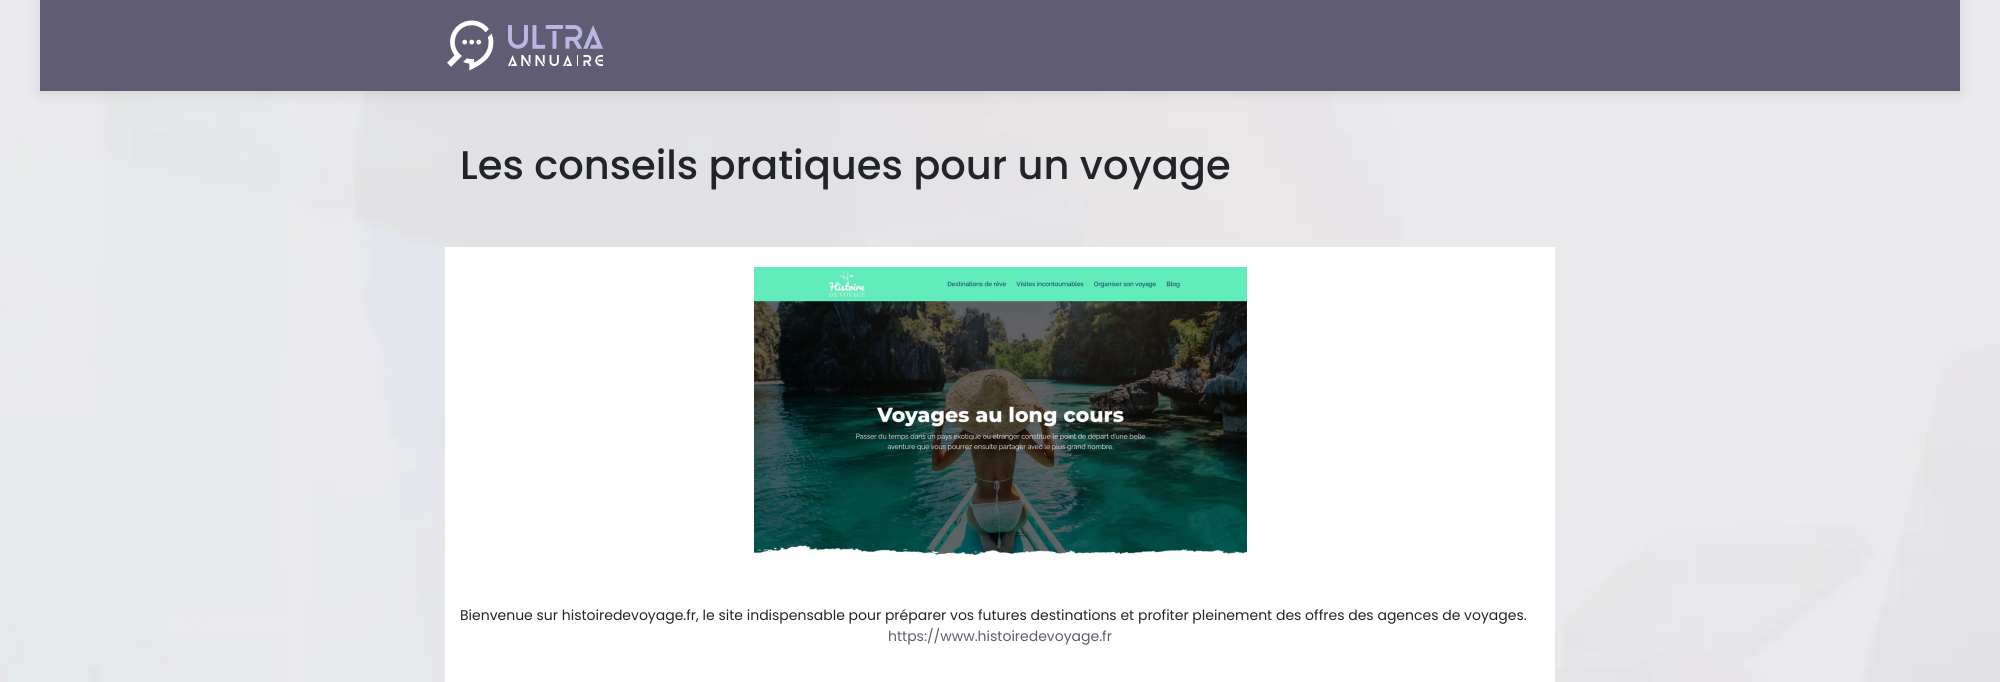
#include <cairo.h>
#include <math.h>
#include <stddef.h>


static void rgb(cairo_t *cr, int r, int g, int b)
{
	cairo_set_source_rgb(cr, r / 255.0, g / 255.0, b / 255.0);
}

static void face(cairo_t *cr, const char *family, double size, int italic, int bold)
{
	cairo_select_font_face(cr, family, italic ? CAIRO_FONT_SLANT_ITALIC : CAIRO_FONT_SLANT_NORMAL,
		bold ? CAIRO_FONT_WEIGHT_BOLD : CAIRO_FONT_WEIGHT_NORMAL);
	cairo_set_font_size(cr, size);
}

static void label(cairo_t *cr, double x, double y, const char *s)
{
	cairo_move_to(cr, x, y);
	cairo_show_text(cr, s);
}

static void rect(cairo_t *cr, double x, double y, double w, double h)
{
	cairo_rectangle(cr, x, y, w, h);
	cairo_fill(cr);
}

static void rrect(cairo_t *cr, double x, double y, double w, double h, double r)
{
	cairo_new_sub_path(cr);
	cairo_arc(cr, x + w - r, y + h - r, r, 0, M_PI / 2);
	cairo_arc(cr, x + r, y + h - r, r, M_PI / 2, M_PI);
	cairo_arc(cr, x + r, y + r, r, M_PI, 1.5 * M_PI);
	cairo_arc(cr, x + w - r, y + r, r, 1.5 * M_PI, 2 * M_PI);
	cairo_close_path(cr);
}

static void soft_shadow(cairo_t *cr, double x, double y, double w, double h, double r, double blur, double alpha)
{
	cairo_push_group_with_content(cr, CAIRO_CONTENT_ALPHA);
	cairo_set_operator(cr, CAIRO_OPERATOR_SOURCE);
	for (int i = 15; i >= -15 && fmin(w, h) + blur * i / 3 > 0; i -= 2) {
		double e = blur * i / 6;
		cairo_set_source_rgba(cr, 0, 0, 0, alpha * erfc((i - 1) / 8.5) / 2);
		rrect(cr, x - e, y - e, w + 2 * e, h + 2 * e, fmax(0, fmin(r + e + blur * .6, fmin(w, h) / 2 + e)));
		cairo_fill(cr);
	}
	cairo_pattern_t *soft = cairo_pop_group(cr);
	cairo_mask(cr, soft);
	cairo_pattern_destroy(soft);
}

static void image(cairo_t *cr, const char *path, double x, double y, double w, double h)
{
	cairo_surface_t *image = cairo_image_surface_create_from_png(path);
	cairo_save(cr);
	cairo_set_source_surface(cr, image, x, y);
	cairo_rectangle(cr, x, y, w, h);
	cairo_fill(cr);
	cairo_restore(cr);
	cairo_surface_destroy(image);
}

static void draw(cairo_t *cr) {
	rgb(cr, 255, 255, 255);
	cairo_paint(cr);
	image(cr, "image0.png", 0, 0, 2000, 682);
	rgb(cr, 0, 0, 0);
	soft_shadow(cr, 40, 2, 1920, 91, 0, 6.5, 0.1);
	rgb(cr, 95, 92, 115);
	rect(cr, 40, 0, 1920, 91);
	image(cr, "image1.png", 447, 20, 156, 51);
	face(cr, "Poppins Medium", 40, 0, 0);
	rgb(cr, 33, 37, 41);
	label(cr, 460, 179, "Les conseils pratiques pour un voyage");
	rgb(cr, 255, 255, 255);
	rect(cr, 445, 247, 1110, 435);
	image(cr, "image2.png", 754, 267, 493, 290);
	face(cr, "Poppins", 14, 0, 0);
	rgb(cr, 33, 37, 41);
	label(cr, 460, 620, "Bienvenue sur histoiredevoyage.fr, le site indispensable pour préparer vos futures destinations et profiter pleinement des offres des agences de voyages.");
	rgb(cr, 95, 92, 115);
	label(cr, 888, 641, "https://www.histoiredevoyage.fr");
}

int main(void) {
	cairo_surface_t *surface = cairo_image_surface_create(CAIRO_FORMAT_RGB24, 2000, 682);
	cairo_t *cr = cairo_create(surface);
	cairo_font_options_t *options = cairo_font_options_create();
	cairo_font_options_set_hint_metrics(options, CAIRO_HINT_METRICS_OFF);
	cairo_font_options_set_hint_style(options, CAIRO_HINT_STYLE_NONE);
	cairo_set_font_options(cr, options);
	cairo_set_miter_limit(cr, 4);
	draw(cr);
	cairo_surface_write_to_png(surface, "render.png");
	cairo_font_options_destroy(options);
	cairo_destroy(cr);
	cairo_surface_destroy(surface);
	return 0;
}
